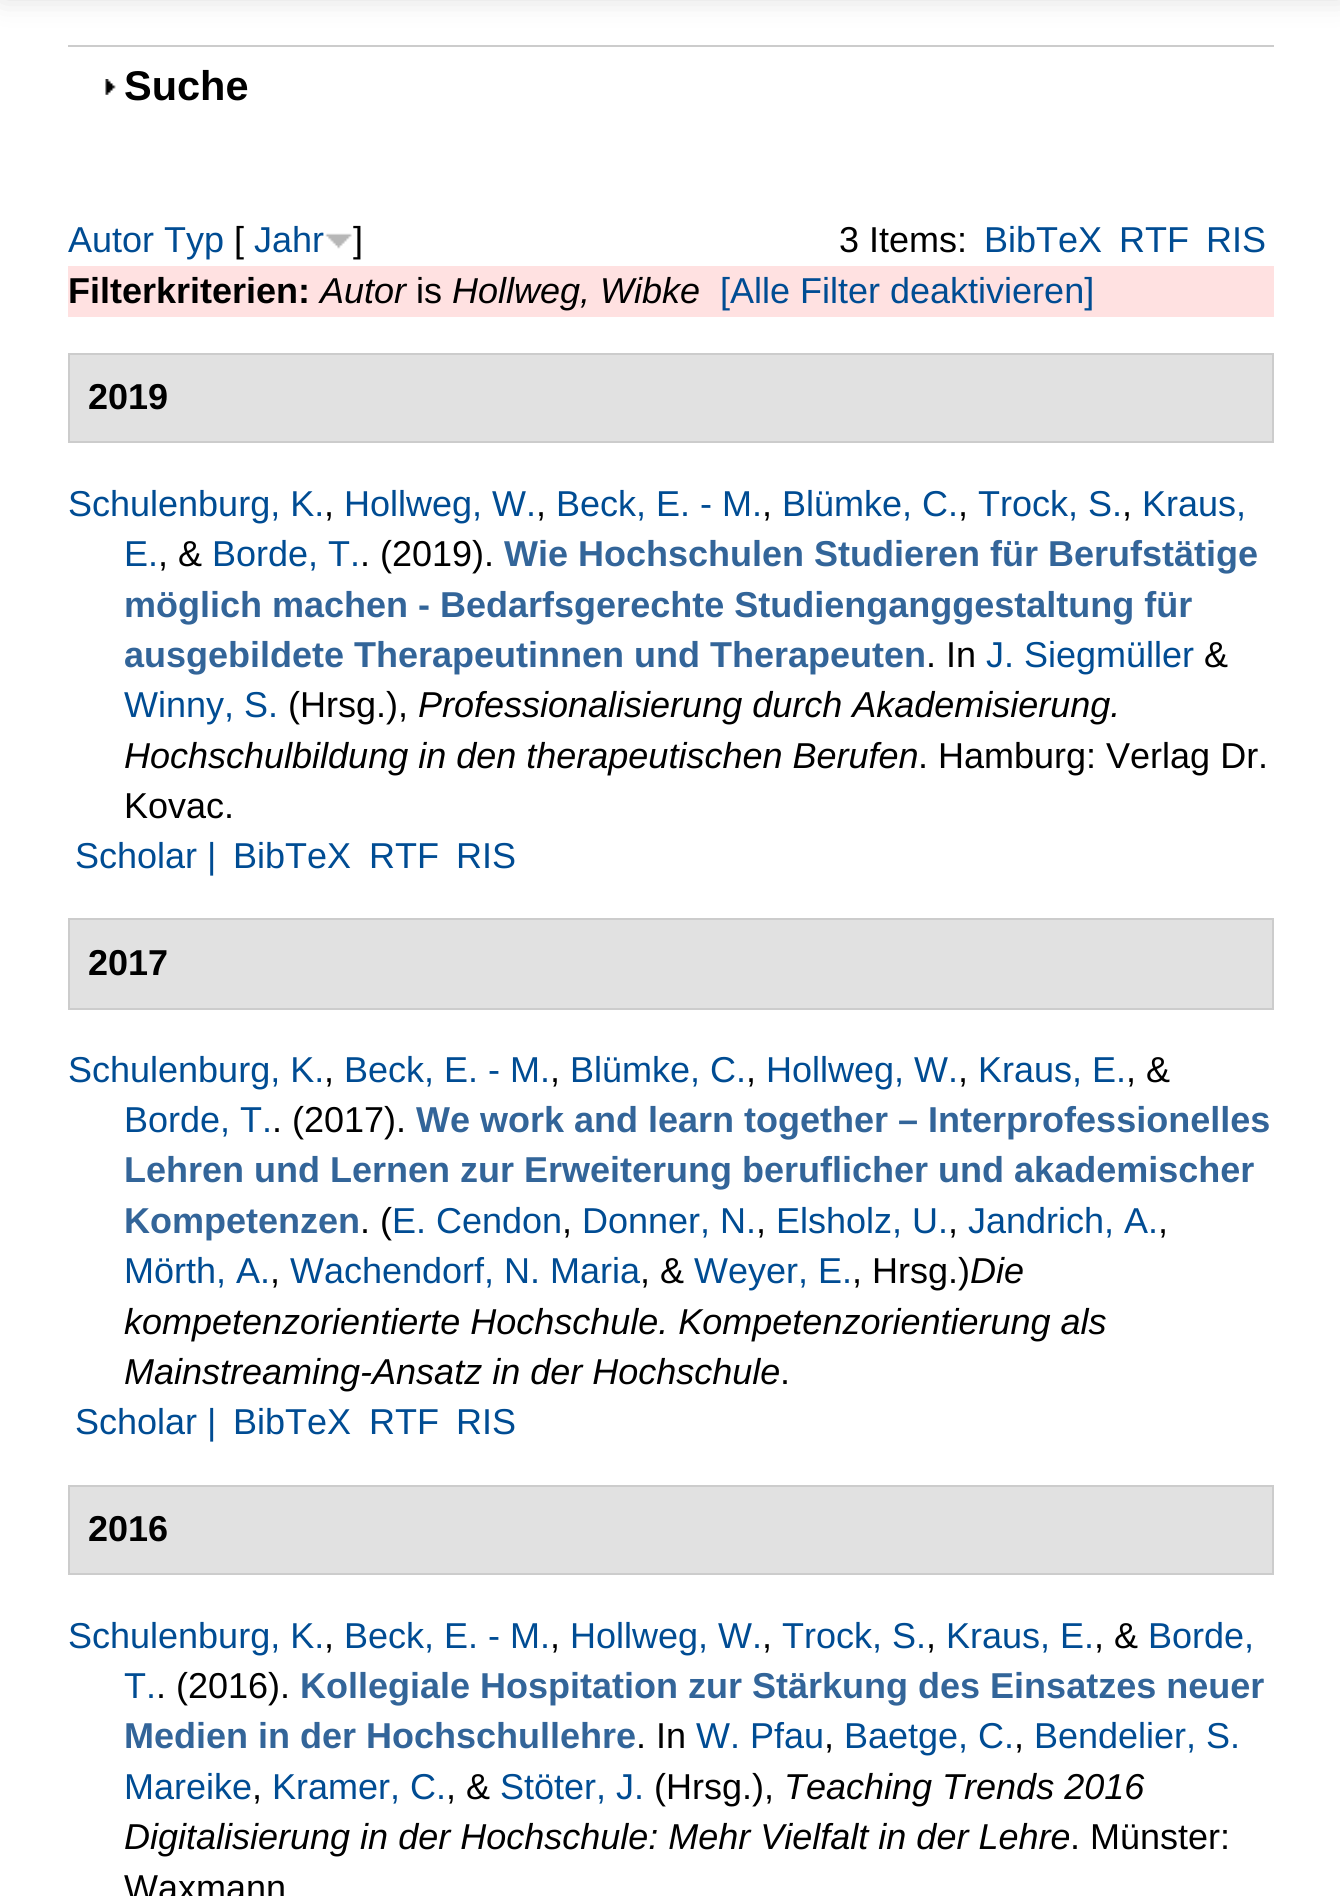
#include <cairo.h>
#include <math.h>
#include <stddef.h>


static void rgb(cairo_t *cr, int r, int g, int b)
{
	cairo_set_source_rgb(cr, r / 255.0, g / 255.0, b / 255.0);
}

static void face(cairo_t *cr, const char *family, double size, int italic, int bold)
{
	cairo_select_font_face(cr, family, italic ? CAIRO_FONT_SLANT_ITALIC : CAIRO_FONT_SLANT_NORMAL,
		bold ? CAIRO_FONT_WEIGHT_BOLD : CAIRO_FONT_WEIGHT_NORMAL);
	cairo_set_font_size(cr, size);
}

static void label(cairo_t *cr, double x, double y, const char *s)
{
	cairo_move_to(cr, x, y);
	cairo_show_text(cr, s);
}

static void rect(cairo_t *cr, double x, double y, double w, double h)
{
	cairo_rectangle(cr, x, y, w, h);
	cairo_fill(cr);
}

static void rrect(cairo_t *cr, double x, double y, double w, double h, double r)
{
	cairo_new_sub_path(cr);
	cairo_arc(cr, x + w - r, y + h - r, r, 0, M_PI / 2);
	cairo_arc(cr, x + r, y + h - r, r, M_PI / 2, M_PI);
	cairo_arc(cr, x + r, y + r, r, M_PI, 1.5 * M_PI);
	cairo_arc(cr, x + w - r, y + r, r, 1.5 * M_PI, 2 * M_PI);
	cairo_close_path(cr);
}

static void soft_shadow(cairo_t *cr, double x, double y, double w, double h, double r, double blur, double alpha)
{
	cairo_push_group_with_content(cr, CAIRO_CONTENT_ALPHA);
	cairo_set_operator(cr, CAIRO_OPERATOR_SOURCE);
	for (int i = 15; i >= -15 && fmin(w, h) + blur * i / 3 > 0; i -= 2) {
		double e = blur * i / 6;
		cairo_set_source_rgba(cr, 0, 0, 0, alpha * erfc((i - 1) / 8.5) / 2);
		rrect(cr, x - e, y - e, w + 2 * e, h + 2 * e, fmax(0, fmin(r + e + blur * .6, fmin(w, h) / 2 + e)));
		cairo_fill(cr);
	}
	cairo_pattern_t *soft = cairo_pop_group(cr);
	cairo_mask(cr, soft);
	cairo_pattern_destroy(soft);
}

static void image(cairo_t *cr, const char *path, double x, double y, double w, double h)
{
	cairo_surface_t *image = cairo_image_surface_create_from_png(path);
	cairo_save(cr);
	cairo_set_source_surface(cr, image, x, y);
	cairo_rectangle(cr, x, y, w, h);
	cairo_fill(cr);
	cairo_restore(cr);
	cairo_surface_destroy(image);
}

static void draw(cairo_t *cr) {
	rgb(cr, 255, 255, 255);
	cairo_paint(cr);
	rgb(cr, 0, 0, 0);
	soft_shadow(cr, 2, -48, 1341, 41, 0, 16, 0.2);
	rgb(cr, 204, 204, 204);
	rect(cr, 68, 45, 1206, 2);
	image(cr, "image0.png", 105, 79, 11, 16);
	face(cr, "Liberation Sans", 41.5, 0, 1);
	rgb(cr, 0, 0, 0);
	label(cr, 124, 100, "Suche");
	face(cr, "Liberation Sans", 36, 0, 0);
	rgb(cr, 0, 76, 147);
	label(cr, 68, 252, "Autor Typ");
	rgb(cr, 0, 0, 0);
	label(cr, 234, 252, "[");
	rgb(cr, 0, 76, 147);
	label(cr, 254, 252, "Jahr");
	image(cr, "image1.png", 325, 233, 27, 16);
	rgb(cr, 0, 0, 0);
	label(cr, 353, 252, "]");
	label(cr, 839, 252, "3 Items:");
	rgb(cr, 0, 76, 147);
	label(cr, 984, 252, "BibTeX");
	label(cr, 1119, 252, "RTF");
	label(cr, 1206, 252, "RIS");
	rgb(cr, 255, 225, 225);
	rect(cr, 68, 266, 1206, 51);
	face(cr, "Liberation Sans", 36, 0, 1);
	rgb(cr, 0, 0, 0);
	label(cr, 68, 303, "Filterkriterien:");
	face(cr, "Liberation Sans", 36, 1, 0);
	label(cr, 320, 303, "Autor");
	face(cr, "Liberation Sans", 36, 0, 0);
	label(cr, 416, 303, "is");
	face(cr, "Liberation Sans", 36, 1, 0);
	label(cr, 452, 303, "Hollweg, Wibke");
	face(cr, "Liberation Sans", 36, 0, 0);
	rgb(cr, 0, 76, 147);
	label(cr, 720, 303, "[Alle Filter deaktivieren]");
	rgb(cr, 225, 225, 225);
	cairo_rectangle(cr, 69, 354, 1204, 88);
	cairo_fill_preserve(cr);
	rgb(cr, 204, 204, 204);
	cairo_stroke(cr);
	face(cr, "Liberation Sans", 36, 0, 1);
	rgb(cr, 0, 0, 0);
	label(cr, 88, 409, "2019");
	face(cr, "Liberation Sans", 36, 0, 0);
	rgb(cr, 0, 76, 147);
	label(cr, 68, 516, "Schulenburg, K.");
	rgb(cr, 0, 0, 0);
	label(cr, 324, 516, ",");
	rgb(cr, 0, 76, 147);
	label(cr, 344, 516, "Hollweg, W.");
	rgb(cr, 0, 0, 0);
	label(cr, 536, 516, ",");
	rgb(cr, 0, 76, 147);
	label(cr, 556, 516, "Beck, E. - M.");
	rgb(cr, 0, 0, 0);
	label(cr, 762, 516, ",");
	rgb(cr, 0, 76, 147);
	label(cr, 782, 516, "Blümke, C.");
	rgb(cr, 0, 0, 0);
	label(cr, 958, 516, ",");
	rgb(cr, 0, 76, 147);
	label(cr, 978, 516, "Trock, S.");
	rgb(cr, 0, 0, 0);
	label(cr, 1122, 516, ",");
	rgb(cr, 0, 76, 147);
	label(cr, 1142, 516, "Kraus,");
	label(cr, 124, 566, "E.");
	rgb(cr, 0, 0, 0);
	label(cr, 158, 566, ", &");
	rgb(cr, 0, 76, 147);
	label(cr, 212, 566, "Borde, T.");
	rgb(cr, 0, 0, 0);
	label(cr, 360, 566, ". (2019).");
	face(cr, "Liberation Sans", 36, 0, 1);
	rgb(cr, 51, 101, 153);
	label(cr, 504, 566, "Wie Hochschulen Studieren für Berufstätige");
	label(cr, 124, 617, "möglich machen - Bedarfsgerechte Studienganggestaltung für");
	label(cr, 124, 667, "ausgebildete Therapeutinnen und Therapeuten");
	face(cr, "Liberation Sans", 36, 0, 0);
	rgb(cr, 0, 0, 0);
	label(cr, 926, 667, ". In");
	rgb(cr, 0, 76, 147);
	label(cr, 986, 667, "J. Siegmüller");
	rgb(cr, 0, 0, 0);
	label(cr, 1204, 667, "&");
	rgb(cr, 0, 76, 147);
	label(cr, 124, 717, "Winny, S.");
	rgb(cr, 0, 0, 0);
	label(cr, 288, 717, "(Hrsg.),");
	face(cr, "Liberation Sans", 36, 1, 0);
	label(cr, 418, 717, "Professionalisierung durch Akademisierung.");
	label(cr, 124, 768, "Hochschulbildung in den therapeutischen Berufen");
	face(cr, "Liberation Sans", 36, 0, 0);
	label(cr, 918, 768, ". Hamburg: Verlag Dr.");
	label(cr, 124, 818, "Kovac.");
	rgb(cr, 0, 76, 147);
	label(cr, 75, 868, "Scholar |");
	label(cr, 233, 868, "BibTeX");
	label(cr, 369, 868, "RTF");
	label(cr, 456, 868, "RIS");
	rgb(cr, 225, 225, 225);
	cairo_rectangle(cr, 69, 919, 1204, 90);
	cairo_fill_preserve(cr);
	rgb(cr, 204, 204, 204);
	cairo_stroke(cr);
	face(cr, "Liberation Sans", 36, 0, 1);
	rgb(cr, 0, 0, 0);
	label(cr, 88, 975, "2017");
	face(cr, "Liberation Sans", 36, 0, 0);
	rgb(cr, 0, 76, 147);
	label(cr, 68, 1082, "Schulenburg, K.");
	rgb(cr, 0, 0, 0);
	label(cr, 324, 1082, ",");
	rgb(cr, 0, 76, 147);
	label(cr, 344, 1082, "Beck, E. - M.");
	rgb(cr, 0, 0, 0);
	label(cr, 550, 1082, ",");
	rgb(cr, 0, 76, 147);
	label(cr, 570, 1082, "Blümke, C.");
	rgb(cr, 0, 0, 0);
	label(cr, 746, 1082, ",");
	rgb(cr, 0, 76, 147);
	label(cr, 766, 1082, "Hollweg, W.");
	rgb(cr, 0, 0, 0);
	label(cr, 958, 1082, ",");
	rgb(cr, 0, 76, 147);
	label(cr, 978, 1082, "Kraus, E.");
	rgb(cr, 0, 0, 0);
	label(cr, 1126, 1082, ", &");
	rgb(cr, 0, 76, 147);
	label(cr, 124, 1132, "Borde, T.");
	rgb(cr, 0, 0, 0);
	label(cr, 272, 1132, ". (2017).");
	face(cr, "Liberation Sans", 36, 0, 1);
	rgb(cr, 51, 101, 153);
	label(cr, 416, 1132, "We work and learn together – Interprofessionelles");
	label(cr, 124, 1182, "Lehren und Lernen zur Erweiterung beruflicher und akademischer");
	label(cr, 124, 1233, "Kompetenzen");
	face(cr, "Liberation Sans", 36, 0, 0);
	rgb(cr, 0, 0, 0);
	label(cr, 360, 1233, ". (");
	rgb(cr, 0, 76, 147);
	label(cr, 392, 1233, "E. Cendon");
	rgb(cr, 0, 0, 0);
	label(cr, 562, 1233, ",");
	rgb(cr, 0, 76, 147);
	label(cr, 582, 1233, "Donner, N.");
	rgb(cr, 0, 0, 0);
	label(cr, 756, 1233, ",");
	rgb(cr, 0, 76, 147);
	label(cr, 776, 1233, "Elsholz, U.");
	rgb(cr, 0, 0, 0);
	label(cr, 948, 1233, ",");
	rgb(cr, 0, 76, 147);
	label(cr, 968, 1233, "Jandrich, A.");
	rgb(cr, 0, 0, 0);
	label(cr, 1158, 1233, ",");
	rgb(cr, 0, 76, 147);
	label(cr, 124, 1283, "Mörth, A.");
	rgb(cr, 0, 0, 0);
	label(cr, 270, 1283, ",");
	rgb(cr, 0, 76, 147);
	label(cr, 290, 1283, "Wachendorf, N. Maria");
	rgb(cr, 0, 0, 0);
	label(cr, 640, 1283, ", &");
	rgb(cr, 0, 76, 147);
	label(cr, 694, 1283, "Weyer, E.");
	rgb(cr, 0, 0, 0);
	label(cr, 852, 1283, ", Hrsg.)");
	face(cr, "Liberation Sans", 36, 1, 0);
	label(cr, 970, 1283, "Die");
	label(cr, 124, 1334, "kompetenzorientierte Hochschule. Kompetenzorientierung als");
	label(cr, 124, 1384, "Mainstreaming-Ansatz in der Hochschule");
	face(cr, "Liberation Sans", 36, 0, 0);
	label(cr, 780, 1384, ".");
	rgb(cr, 0, 76, 147);
	label(cr, 75, 1434, "Scholar |");
	label(cr, 233, 1434, "BibTeX");
	label(cr, 369, 1434, "RTF");
	label(cr, 456, 1434, "RIS");
	rgb(cr, 225, 225, 225);
	cairo_rectangle(cr, 69, 1486, 1204, 88);
	cairo_fill_preserve(cr);
	rgb(cr, 204, 204, 204);
	cairo_stroke(cr);
	face(cr, "Liberation Sans", 36, 0, 1);
	rgb(cr, 0, 0, 0);
	label(cr, 88, 1541, "2016");
	face(cr, "Liberation Sans", 36, 0, 0);
	rgb(cr, 0, 76, 147);
	label(cr, 68, 1648, "Schulenburg, K.");
	rgb(cr, 0, 0, 0);
	label(cr, 324, 1648, ",");
	rgb(cr, 0, 76, 147);
	label(cr, 344, 1648, "Beck, E. - M.");
	rgb(cr, 0, 0, 0);
	label(cr, 550, 1648, ",");
	rgb(cr, 0, 76, 147);
	label(cr, 570, 1648, "Hollweg, W.");
	rgb(cr, 0, 0, 0);
	label(cr, 762, 1648, ",");
	rgb(cr, 0, 76, 147);
	label(cr, 782, 1648, "Trock, S.");
	rgb(cr, 0, 0, 0);
	label(cr, 926, 1648, ",");
	rgb(cr, 0, 76, 147);
	label(cr, 946, 1648, "Kraus, E.");
	rgb(cr, 0, 0, 0);
	label(cr, 1094, 1648, ", &");
	rgb(cr, 0, 76, 147);
	label(cr, 1148, 1648, "Borde,");
	label(cr, 124, 1698, "T.");
	rgb(cr, 0, 0, 0);
	label(cr, 156, 1698, ". (2016).");
	face(cr, "Liberation Sans", 36, 0, 1);
	rgb(cr, 51, 101, 153);
	label(cr, 300, 1698, "Kollegiale Hospitation zur Stärkung des Einsatzes neuer");
	label(cr, 124, 1748, "Medien in der Hochschullehre");
	face(cr, "Liberation Sans", 36, 0, 0);
	rgb(cr, 0, 0, 0);
	label(cr, 636, 1748, ". In");
	rgb(cr, 0, 76, 147);
	label(cr, 696, 1748, "W. Pfau");
	rgb(cr, 0, 0, 0);
	label(cr, 824, 1748, ",");
	rgb(cr, 0, 76, 147);
	label(cr, 844, 1748, "Baetge, C.");
	rgb(cr, 0, 0, 0);
	label(cr, 1014, 1748, ",");
	rgb(cr, 0, 76, 147);
	label(cr, 1034, 1748, "Bendelier, S.");
	label(cr, 124, 1799, "Mareike");
	rgb(cr, 0, 0, 0);
	label(cr, 252, 1799, ",");
	rgb(cr, 0, 76, 147);
	label(cr, 272, 1799, "Kramer, C.");
	rgb(cr, 0, 0, 0);
	label(cr, 446, 1799, ", &");
	rgb(cr, 0, 76, 147);
	label(cr, 500, 1799, "Stöter, J.");
	rgb(cr, 0, 0, 0);
	label(cr, 654, 1799, "(Hrsg.),");
	face(cr, "Liberation Sans", 36, 1, 0);
	label(cr, 784, 1799, "Teaching Trends 2016");
	label(cr, 124, 1849, "Digitalisierung in der Hochschule: Mehr Vielfalt in der Lehre");
	face(cr, "Liberation Sans", 36, 0, 0);
	label(cr, 1070, 1849, ". Münster:");
	label(cr, 124, 1900, "Waxmann");
}

int main(void) {
	cairo_surface_t *surface = cairo_image_surface_create(CAIRO_FORMAT_RGB24, 1340, 1896);
	cairo_t *cr = cairo_create(surface);
	cairo_font_options_t *options = cairo_font_options_create();
	cairo_font_options_set_hint_metrics(options, CAIRO_HINT_METRICS_OFF);
	cairo_font_options_set_hint_style(options, CAIRO_HINT_STYLE_NONE);
	cairo_set_font_options(cr, options);
	cairo_set_miter_limit(cr, 4);
	draw(cr);
	cairo_surface_write_to_png(surface, "render.png");
	cairo_font_options_destroy(options);
	cairo_destroy(cr);
	cairo_surface_destroy(surface);
	return 0;
}
